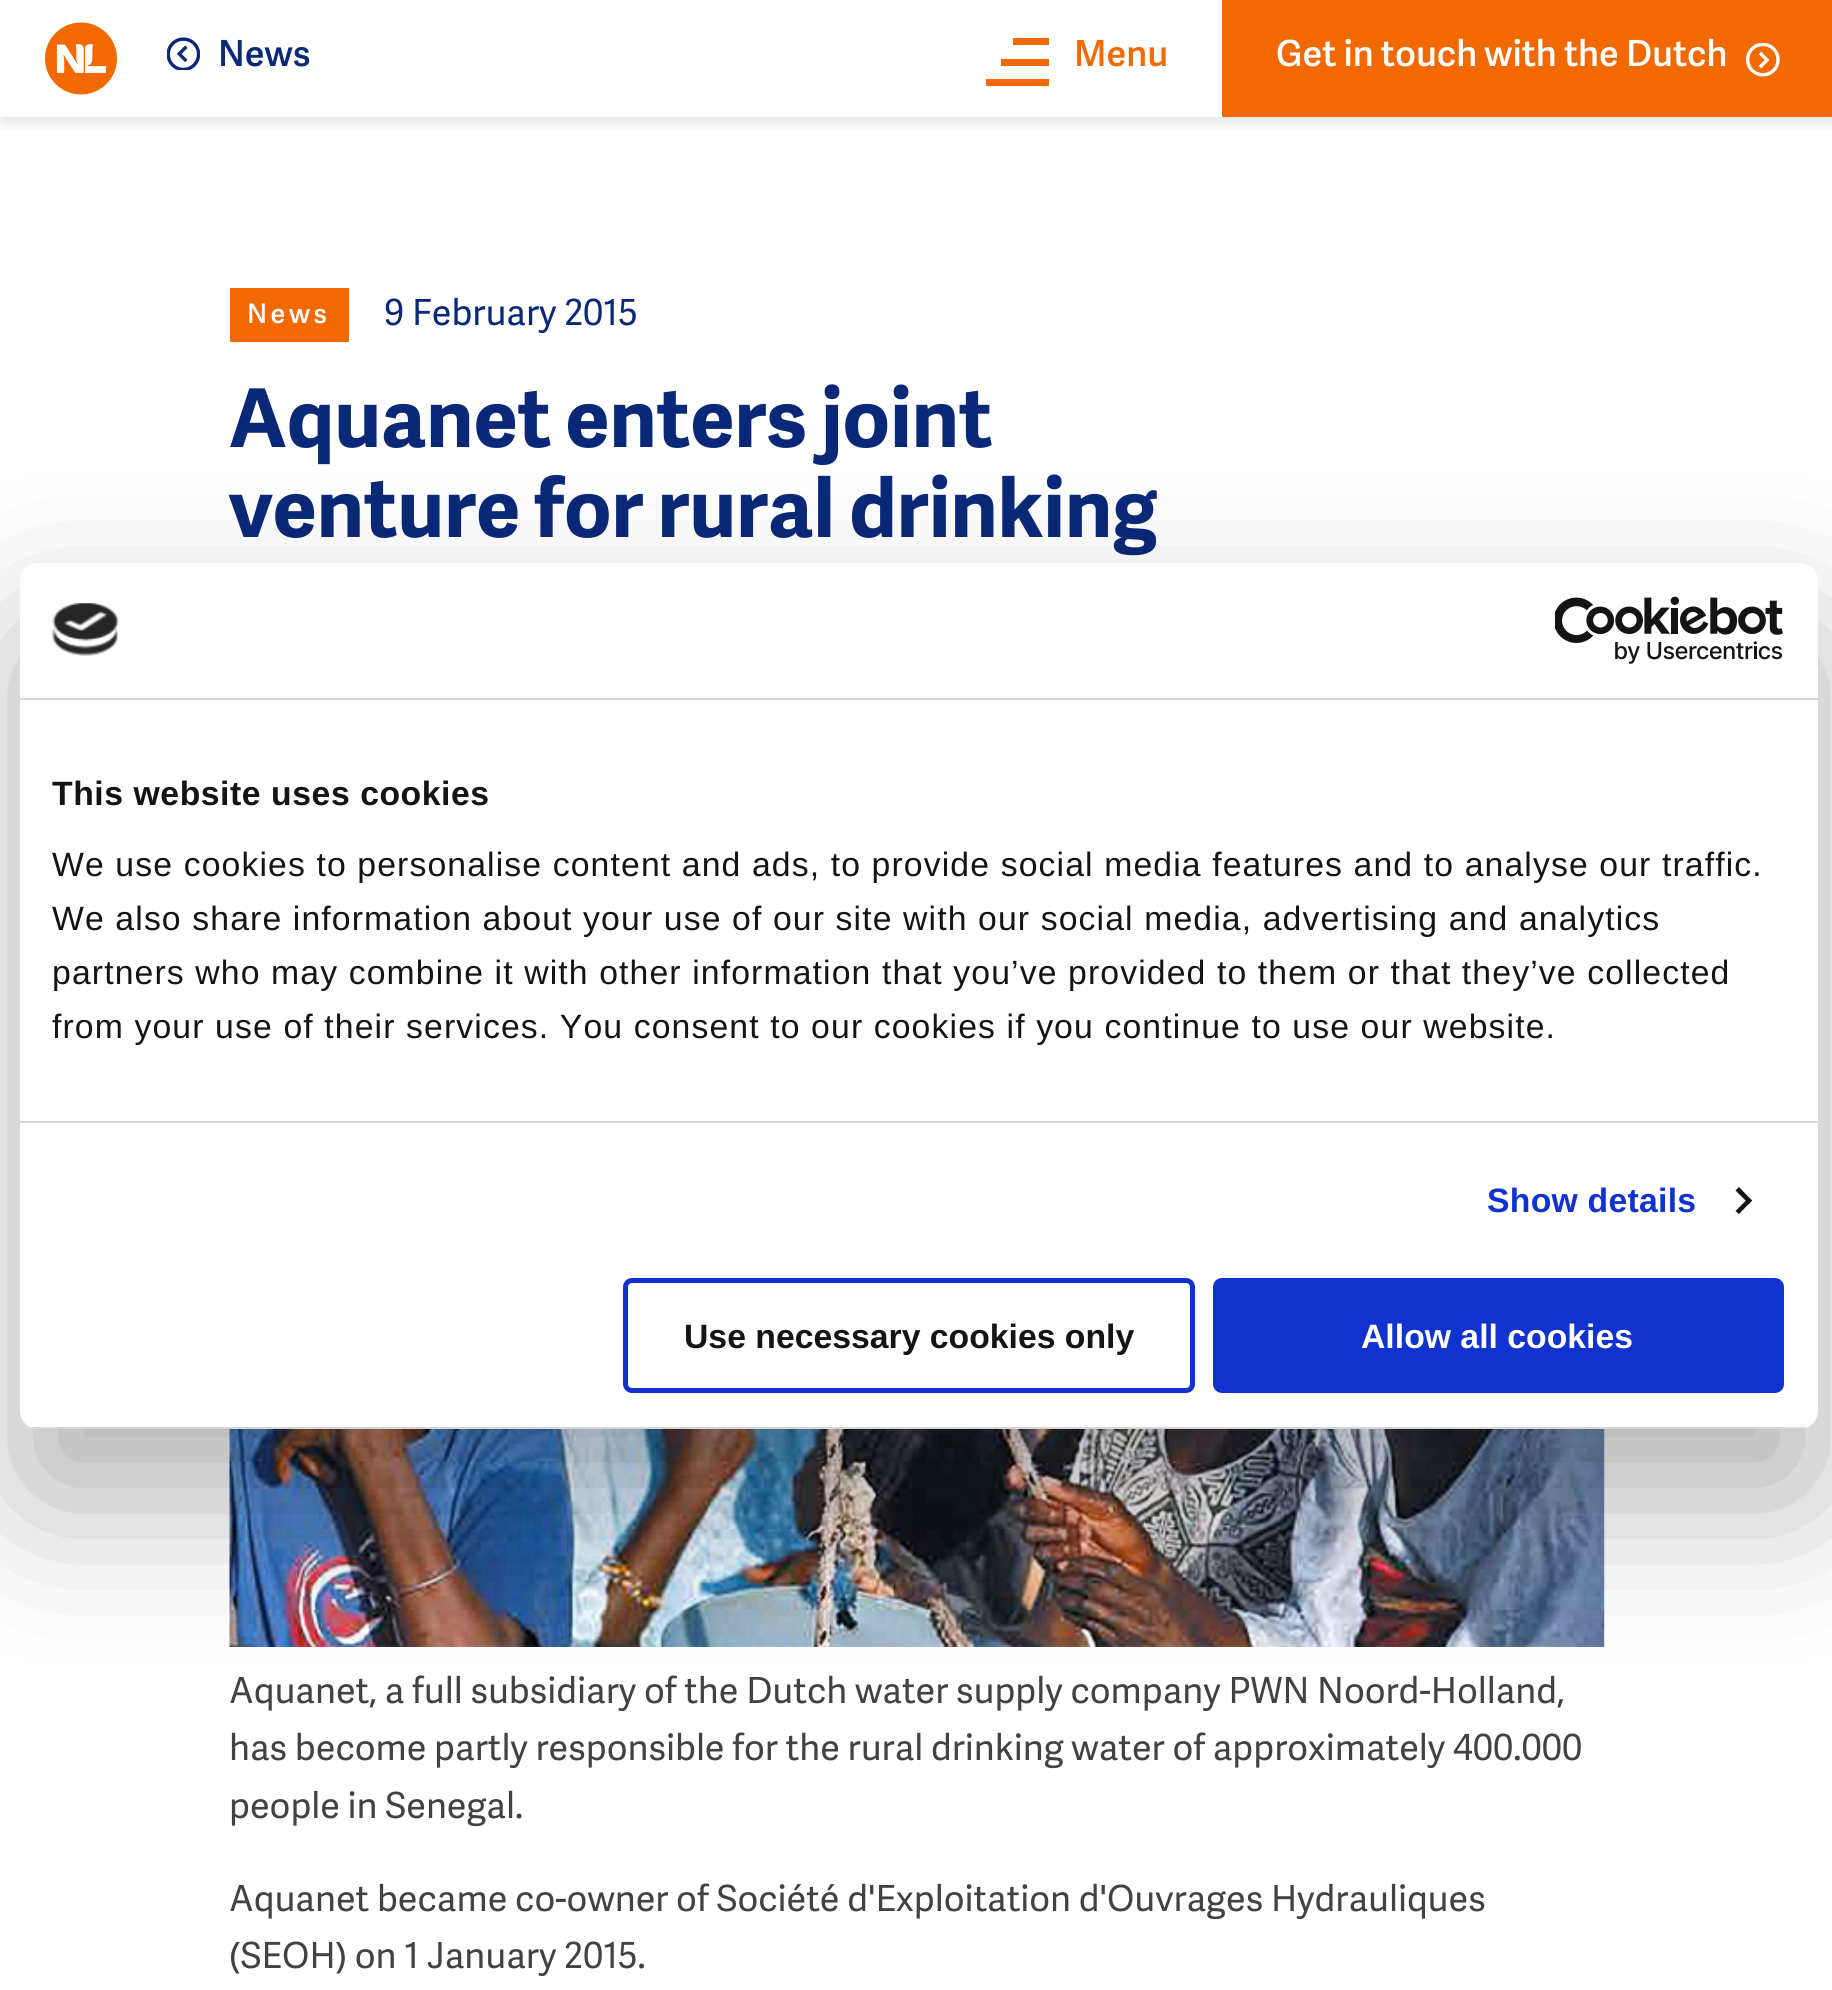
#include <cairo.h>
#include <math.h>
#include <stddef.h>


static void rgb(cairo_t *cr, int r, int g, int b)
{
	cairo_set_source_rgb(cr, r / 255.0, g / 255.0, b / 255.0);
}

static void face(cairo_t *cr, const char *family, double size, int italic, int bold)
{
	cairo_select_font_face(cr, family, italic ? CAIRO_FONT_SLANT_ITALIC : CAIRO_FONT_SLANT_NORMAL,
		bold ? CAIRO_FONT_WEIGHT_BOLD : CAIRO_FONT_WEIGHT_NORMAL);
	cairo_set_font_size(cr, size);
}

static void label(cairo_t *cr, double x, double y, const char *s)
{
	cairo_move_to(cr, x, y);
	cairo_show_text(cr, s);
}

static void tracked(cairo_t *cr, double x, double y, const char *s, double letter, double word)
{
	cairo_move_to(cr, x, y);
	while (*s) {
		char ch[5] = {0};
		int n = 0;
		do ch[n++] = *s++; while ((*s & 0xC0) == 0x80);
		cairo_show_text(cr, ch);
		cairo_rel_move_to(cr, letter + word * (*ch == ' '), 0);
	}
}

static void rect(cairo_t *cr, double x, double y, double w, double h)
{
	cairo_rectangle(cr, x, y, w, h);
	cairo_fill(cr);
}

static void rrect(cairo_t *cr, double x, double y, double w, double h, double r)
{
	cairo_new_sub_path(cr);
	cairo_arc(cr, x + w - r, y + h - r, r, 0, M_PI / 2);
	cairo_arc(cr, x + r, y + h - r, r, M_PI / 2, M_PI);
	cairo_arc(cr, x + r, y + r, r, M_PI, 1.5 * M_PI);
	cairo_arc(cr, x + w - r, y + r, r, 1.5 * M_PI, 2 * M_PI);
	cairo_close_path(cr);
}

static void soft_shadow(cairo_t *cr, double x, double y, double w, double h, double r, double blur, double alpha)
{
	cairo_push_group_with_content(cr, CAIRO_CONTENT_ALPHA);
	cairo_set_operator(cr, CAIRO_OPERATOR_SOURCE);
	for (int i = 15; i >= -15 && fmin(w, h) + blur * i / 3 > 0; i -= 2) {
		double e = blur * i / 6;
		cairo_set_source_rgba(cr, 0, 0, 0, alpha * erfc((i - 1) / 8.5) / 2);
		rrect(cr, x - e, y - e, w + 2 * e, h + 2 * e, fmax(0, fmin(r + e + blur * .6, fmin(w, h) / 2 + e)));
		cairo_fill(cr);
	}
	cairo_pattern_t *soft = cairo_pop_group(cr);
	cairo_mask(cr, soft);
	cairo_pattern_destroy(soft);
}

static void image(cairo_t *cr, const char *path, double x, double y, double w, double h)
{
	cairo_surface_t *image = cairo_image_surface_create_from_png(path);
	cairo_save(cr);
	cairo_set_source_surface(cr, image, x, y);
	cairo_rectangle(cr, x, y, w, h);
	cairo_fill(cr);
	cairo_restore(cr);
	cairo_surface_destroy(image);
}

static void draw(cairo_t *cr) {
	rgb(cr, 255, 255, 255);
	cairo_paint(cr);
	cairo_save(cr);
	cairo_rectangle(cr, 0, 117, 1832, 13);
	cairo_clip(cr);
	rgb(cr, 0, 0, 0);
	soft_shadow(cr, 0, 7, 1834, 117, 0, 7, 0.1);
	cairo_restore(cr);
	image(cr, "image0.png", 45, 22, 72, 73);
	image(cr, "image1.png", 167, 37, 33, 33);
	face(cr, "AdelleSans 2", 36, 0, 0);
	rgb(cr, 9, 40, 119);
	label(cr, 218, 66, "News");
	rgb(cr, 241, 105, 0);
	rect(cr, 1013, 38, 36, 7);
	rect(cr, 1001, 59, 48, 7);
	rect(cr, 986, 79, 63, 7);
	label(cr, 1074, 66, "Menu");
	rect(cr, 1222, 0, 610, 117);
	rgb(cr, 255, 255, 255);
	label(cr, 1276, 66, "Get in touch with the Dutch");
	image(cr, "image2.png", 1746, 43, 34, 34);
	rgb(cr, 241, 105, 0);
	rect(cr, 230, 288, 119, 54);
	face(cr, "AdelleSans 2", 27, 0, 0);
	rgb(cr, 255, 255, 255);
	tracked(cr, 247, 323, "News", 3.5, 0);
	face(cr, "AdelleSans", 36, 0, 0);
	rgb(cr, 9, 40, 119);
	label(cr, 384, 325, "9 February 2015");
	face(cr, "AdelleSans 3", 81, 0, 0);
	label(cr, 229, 447, "Aquanet enters joint");
	label(cr, 229, 537, "venture for rural drinking");
	image(cr, "image3.png", 229, 1429, 1376, 218);
	face(cr, "AdelleSans", 36, 0, 0);
	rgb(cr, 66, 66, 66);
	label(cr, 229, 1703, "Aquanet, a full subsidiary of the Dutch water supply company PWN Noord-Holland,");
	label(cr, 229, 1760, "has become partly responsible for the rural drinking water of approximately 400.000");
	label(cr, 229, 1818, "people in Senegal.");
	label(cr, 229, 1911, "Aquanet became co-owner of Société d'Exploitation d'Ouvrages Hydrauliques");
	label(cr, 229, 1968, "(SEOH) on 1 January 2015.");
	rgb(cr, 0, 0, 0);
	soft_shadow(cr, 20, 635, 1798, 866, 18, 76.5, 0.3);
	rgb(cr, 255, 255, 255);
	rrect(cr, 20, 563, 1798, 866, 18);
	cairo_fill(cr);
	rgb(cr, 214, 214, 214);
	rect(cr, 20, 698, 1798, 2);
	image(cr, "image4.png", 52, 603, 67, 53);
	image(cr, "image5.png", 1555, 596, 228, 68);
	rect(cr, 20, 1121, 1798, 2);
	face(cr, "Liberation Sans", 33.75, 0, 1);
	rgb(cr, 20, 20, 20);
	tracked(cr, 52, 805, "This website uses cookies", 0.55, 0);
	face(cr, "Liberation Sans", 33.75, 0, 0);
	tracked(cr, 52, 876, "We use cookies to personalise content and ads, to provide social media features and to analyse our traffic.", 1.12, 0);
	tracked(cr, 52, 930, "We also share information about your use of our site with our social media, advertising and analytics", 1.12, 0);
	tracked(cr, 52, 984, "partners who may combine it with other information that you’ve provided to them or that they’ve collected", 1.12, 0);
	tracked(cr, 52, 1038, "from your use of their services. You consent to our cookies if you continue to use our website.", 1.12, 0);
	face(cr, "Liberation Sans", 33.75, 0, 1);
	rgb(cr, 16, 50, 207);
	tracked(cr, 1487, 1212, "Show details", 0.25, 0);
	rgb(cr, 20, 20, 20);
	cairo_new_path(cr);
	cairo_move_to(cr, 1739, 1187);
	cairo_line_to(cr, 1752, 1200.5);
	cairo_line_to(cr, 1749, 1204);
	cairo_line_to(cr, 1735.5, 1190.5);
	cairo_close_path(cr);
	cairo_fill(cr);
	cairo_new_path(cr);
	cairo_move_to(cr, 1749, 1197.5);
	cairo_line_to(cr, 1752, 1200.5);
	cairo_line_to(cr, 1739, 1214);
	cairo_line_to(cr, 1735.5, 1211);
	cairo_close_path(cr);
	cairo_fill(cr);
	cairo_save(cr);
	rrect(cr, 20, 563, 1798, 866, 18);
	cairo_clip(cr);
	rgb(cr, 214, 214, 214);
	rect(cr, 30, 1427, 1778, 2);
	cairo_restore(cr);
	rrect(cr, 625.5, 1280.5, 567, 110, 6.5);
	rgb(cr, 16, 50, 207);
	cairo_set_line_width(cr, 5);
	cairo_stroke(cr);
	rgb(cr, 20, 20, 20);
	label(cr, 684, 1348, "Use necessary cookies only");
	rgb(cr, 16, 50, 207);
	rrect(cr, 1215.5, 1280.5, 566, 110, 6.5);
	cairo_fill_preserve(cr);
	cairo_stroke(cr);
	rgb(cr, 255, 255, 255);
	label(cr, 1361, 1348, "Allow all cookies");
}

int main(void) {
	cairo_surface_t *surface = cairo_image_surface_create(CAIRO_FORMAT_RGB24, 1832, 1990);
	cairo_t *cr = cairo_create(surface);
	cairo_font_options_t *options = cairo_font_options_create();
	cairo_font_options_set_hint_metrics(options, CAIRO_HINT_METRICS_OFF);
	cairo_font_options_set_hint_style(options, CAIRO_HINT_STYLE_NONE);
	cairo_set_font_options(cr, options);
	cairo_set_miter_limit(cr, 4);
	draw(cr);
	cairo_surface_write_to_png(surface, "render.png");
	cairo_font_options_destroy(options);
	cairo_destroy(cr);
	cairo_surface_destroy(surface);
	return 0;
}
